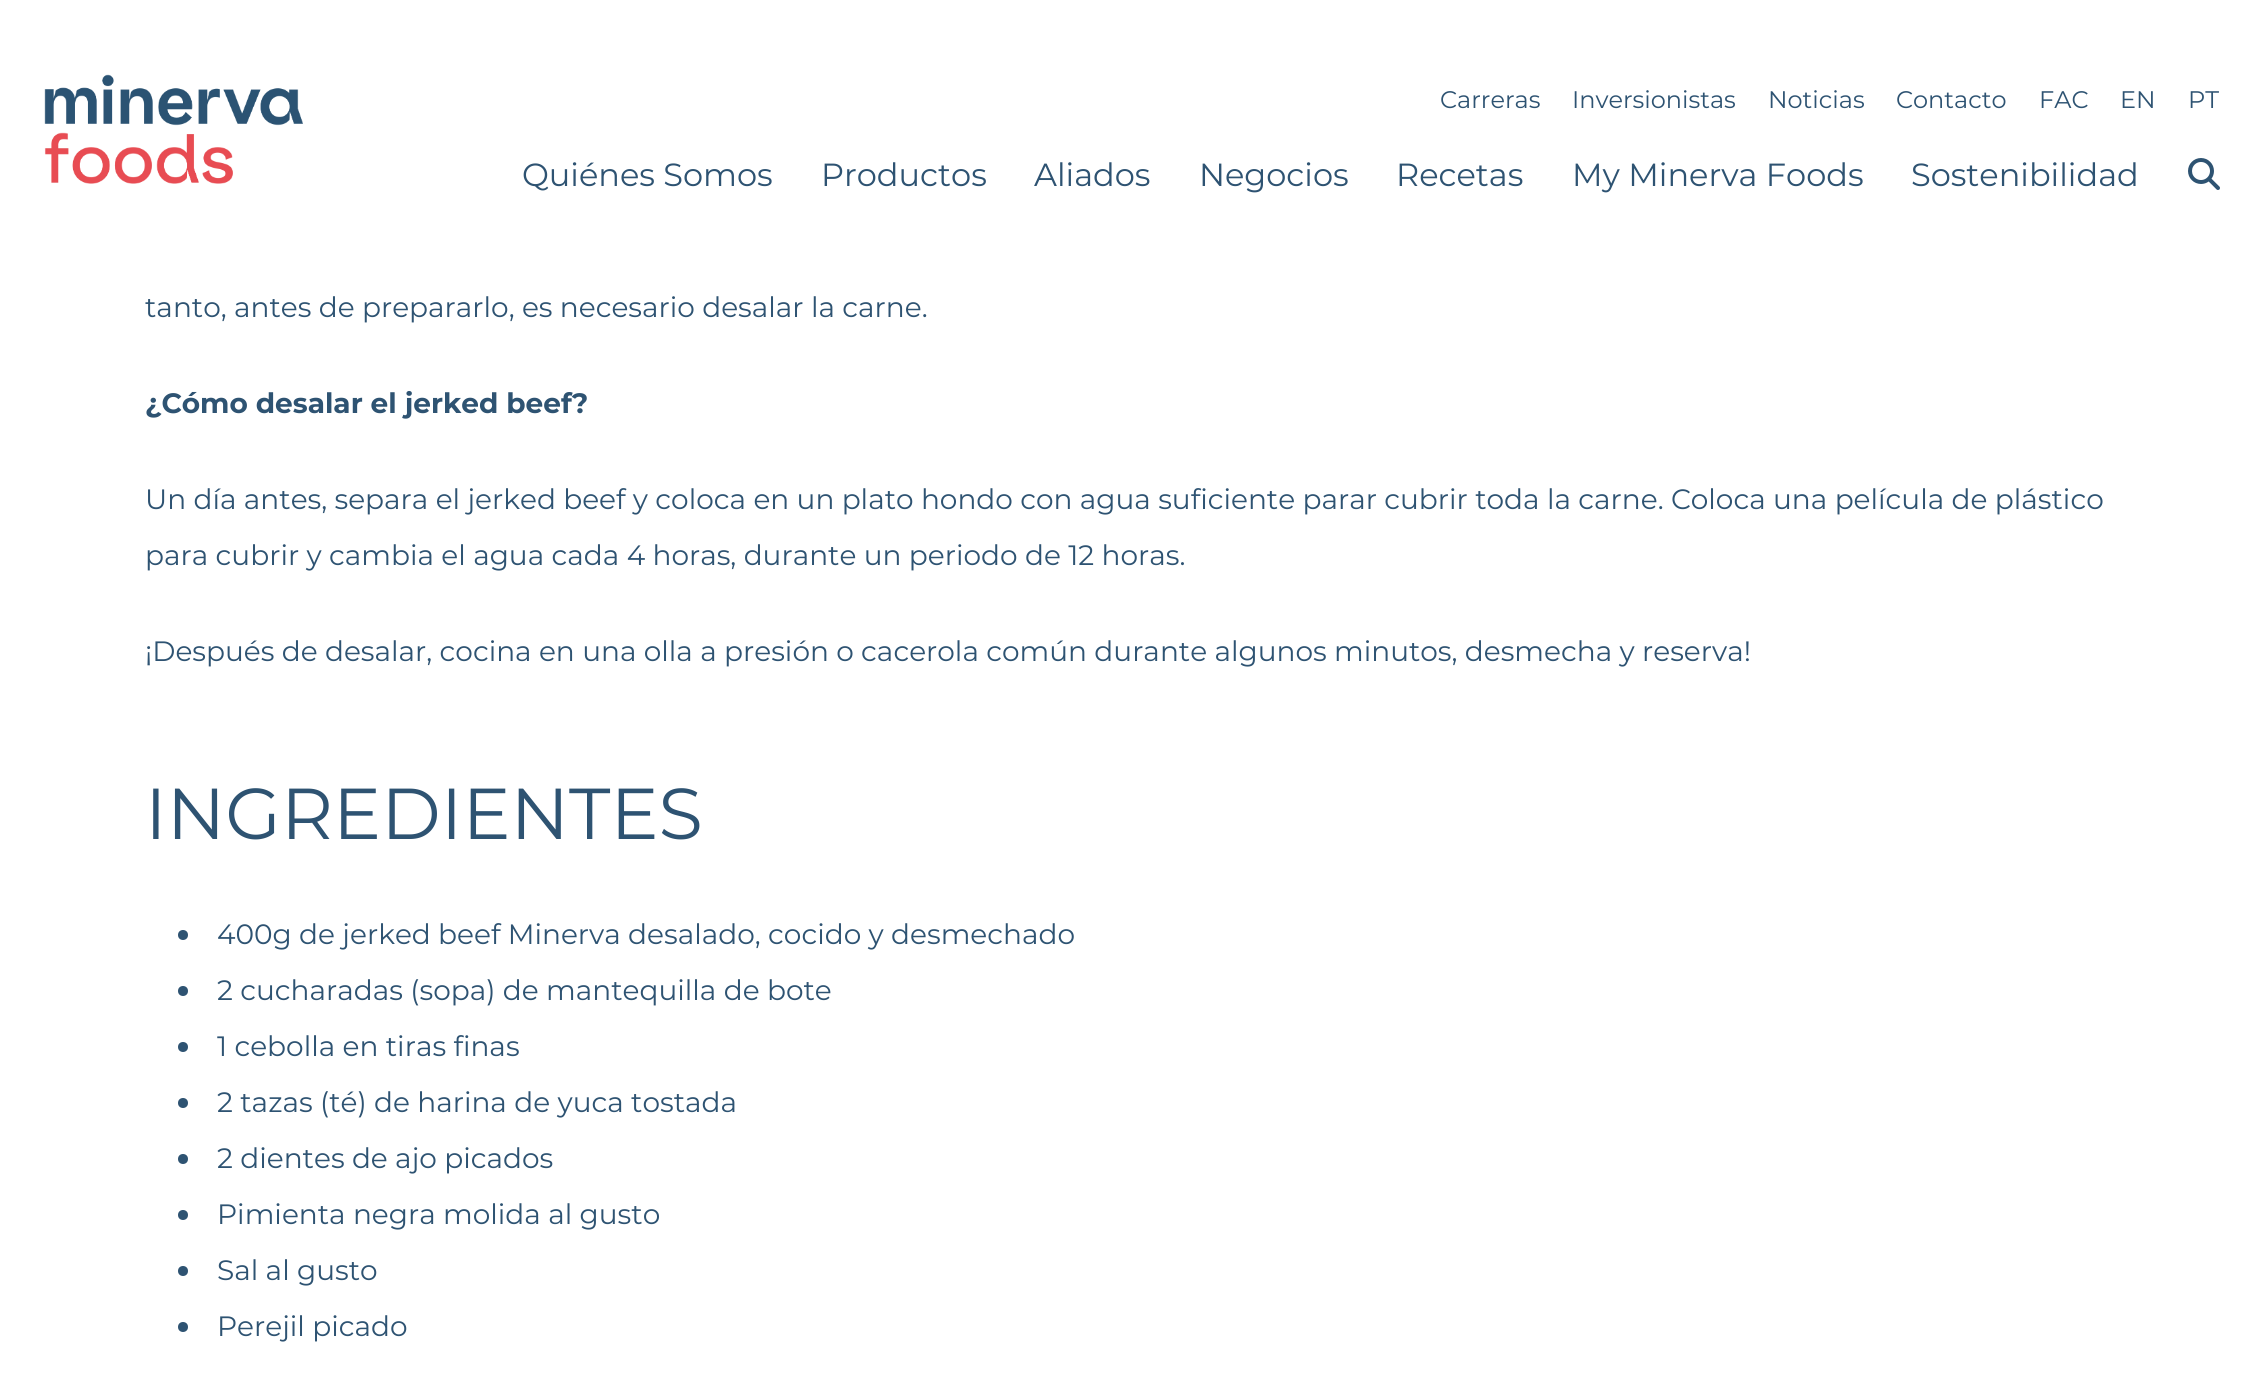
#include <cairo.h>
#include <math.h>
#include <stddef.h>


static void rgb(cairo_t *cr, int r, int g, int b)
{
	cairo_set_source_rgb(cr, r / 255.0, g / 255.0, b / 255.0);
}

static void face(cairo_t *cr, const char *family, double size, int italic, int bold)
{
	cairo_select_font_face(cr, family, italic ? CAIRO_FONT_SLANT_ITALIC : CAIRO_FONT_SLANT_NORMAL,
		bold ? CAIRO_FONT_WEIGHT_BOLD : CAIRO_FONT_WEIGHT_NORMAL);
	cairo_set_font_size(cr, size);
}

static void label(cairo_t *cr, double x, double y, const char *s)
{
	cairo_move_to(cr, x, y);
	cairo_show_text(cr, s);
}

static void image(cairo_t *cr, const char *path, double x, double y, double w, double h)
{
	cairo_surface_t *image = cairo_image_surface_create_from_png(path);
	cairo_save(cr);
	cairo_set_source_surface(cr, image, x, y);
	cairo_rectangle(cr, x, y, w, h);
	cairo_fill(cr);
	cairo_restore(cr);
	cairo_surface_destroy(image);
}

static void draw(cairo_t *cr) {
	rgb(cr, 255, 255, 255);
	cairo_paint(cr);
	image(cr, "image0.png", 44, 74, 259, 110);
	face(cr, "Montserrat", 24, 0, 0);
	rgb(cr, 46, 83, 114);
	label(cr, 1440, 108, "Carreras");
	label(cr, 1572, 108, "Inversionistas");
	label(cr, 1768, 108, "Noticias");
	label(cr, 1896, 108, "Contacto");
	label(cr, 2039, 108, "FAC");
	label(cr, 2120, 108, "EN");
	label(cr, 2188, 108, "PT");
	face(cr, "Montserrat", 32, 0, 0);
	label(cr, 522, 186, "Quiénes Somos");
	label(cr, 821, 186, "Productos");
	label(cr, 1034, 186, "Aliados");
	label(cr, 1199, 186, "Negocios");
	label(cr, 1396, 186, "Recetas");
	label(cr, 1572, 186, "My Minerva Foods");
	label(cr, 1911, 186, "Sostenibilidad");
	image(cr, "image1.png", 2188, 158, 32, 32);
	face(cr, "Montserrat", 28, 0, 0);
	label(cr, 145, 317, "tanto, antes de prepararlo, es necesario desalar la carne.");
	face(cr, "Montserrat", 28, 0, 1);
	label(cr, 145, 413, "¿Cómo desalar el jerked beef?");
	face(cr, "Montserrat", 28, 0, 0);
	label(cr, 145, 509, "Un día antes, separa el jerked beef y coloca en un plato hondo con agua suficiente parar cubrir toda la carne. Coloca una película de plástico");
	label(cr, 145, 565, "para cubrir y cambia el agua cada 4 horas, durante un periodo de 12 horas.");
	label(cr, 145, 661, "¡Después de desalar, cocina en una olla a presión o cacerola común durante algunos minutos, desmecha y reserva!");
	face(cr, "Montserrat", 72, 0, 0);
	label(cr, 145, 839, "INGREDIENTES");
	cairo_new_path(cr);
	cairo_arc(cr, 183, 935, 5, 0, 2 * M_PI);
	cairo_fill(cr);
	face(cr, "Montserrat", 28, 0, 0);
	label(cr, 217, 944, "400g de jerked beef Minerva desalado, cocido y desmechado");
	cairo_new_path(cr);
	cairo_arc(cr, 183, 991, 5, 0, 2 * M_PI);
	cairo_fill(cr);
	label(cr, 217, 1000, "2 cucharadas (sopa) de mantequilla de bote");
	cairo_new_path(cr);
	cairo_arc(cr, 183, 1047, 5, 0, 2 * M_PI);
	cairo_fill(cr);
	label(cr, 217, 1056, "1 cebolla en tiras finas");
	cairo_new_path(cr);
	cairo_arc(cr, 183, 1103, 5, 0, 2 * M_PI);
	cairo_fill(cr);
	label(cr, 217, 1112, "2 tazas (té) de harina de yuca tostada");
	cairo_new_path(cr);
	cairo_arc(cr, 183, 1159, 5, 0, 2 * M_PI);
	cairo_fill(cr);
	label(cr, 217, 1168, "2 dientes de ajo picados");
	cairo_new_path(cr);
	cairo_arc(cr, 183, 1215, 5, 0, 2 * M_PI);
	cairo_fill(cr);
	label(cr, 217, 1224, "Pimienta negra molida al gusto");
	cairo_new_path(cr);
	cairo_arc(cr, 183, 1271, 5, 0, 2 * M_PI);
	cairo_fill(cr);
	label(cr, 217, 1280, "Sal al gusto");
	cairo_new_path(cr);
	cairo_arc(cr, 183, 1327, 5, 0, 2 * M_PI);
	cairo_fill(cr);
	label(cr, 217, 1336, "Perejil picado");
}

int main(void) {
	cairo_surface_t *surface = cairo_image_surface_create(CAIRO_FORMAT_RGB24, 2261, 1379);
	cairo_t *cr = cairo_create(surface);
	cairo_font_options_t *options = cairo_font_options_create();
	cairo_font_options_set_hint_metrics(options, CAIRO_HINT_METRICS_OFF);
	cairo_font_options_set_hint_style(options, CAIRO_HINT_STYLE_NONE);
	cairo_set_font_options(cr, options);
	cairo_set_miter_limit(cr, 4);
	draw(cr);
	cairo_surface_write_to_png(surface, "render.png");
	cairo_font_options_destroy(options);
	cairo_destroy(cr);
	cairo_surface_destroy(surface);
	return 0;
}
